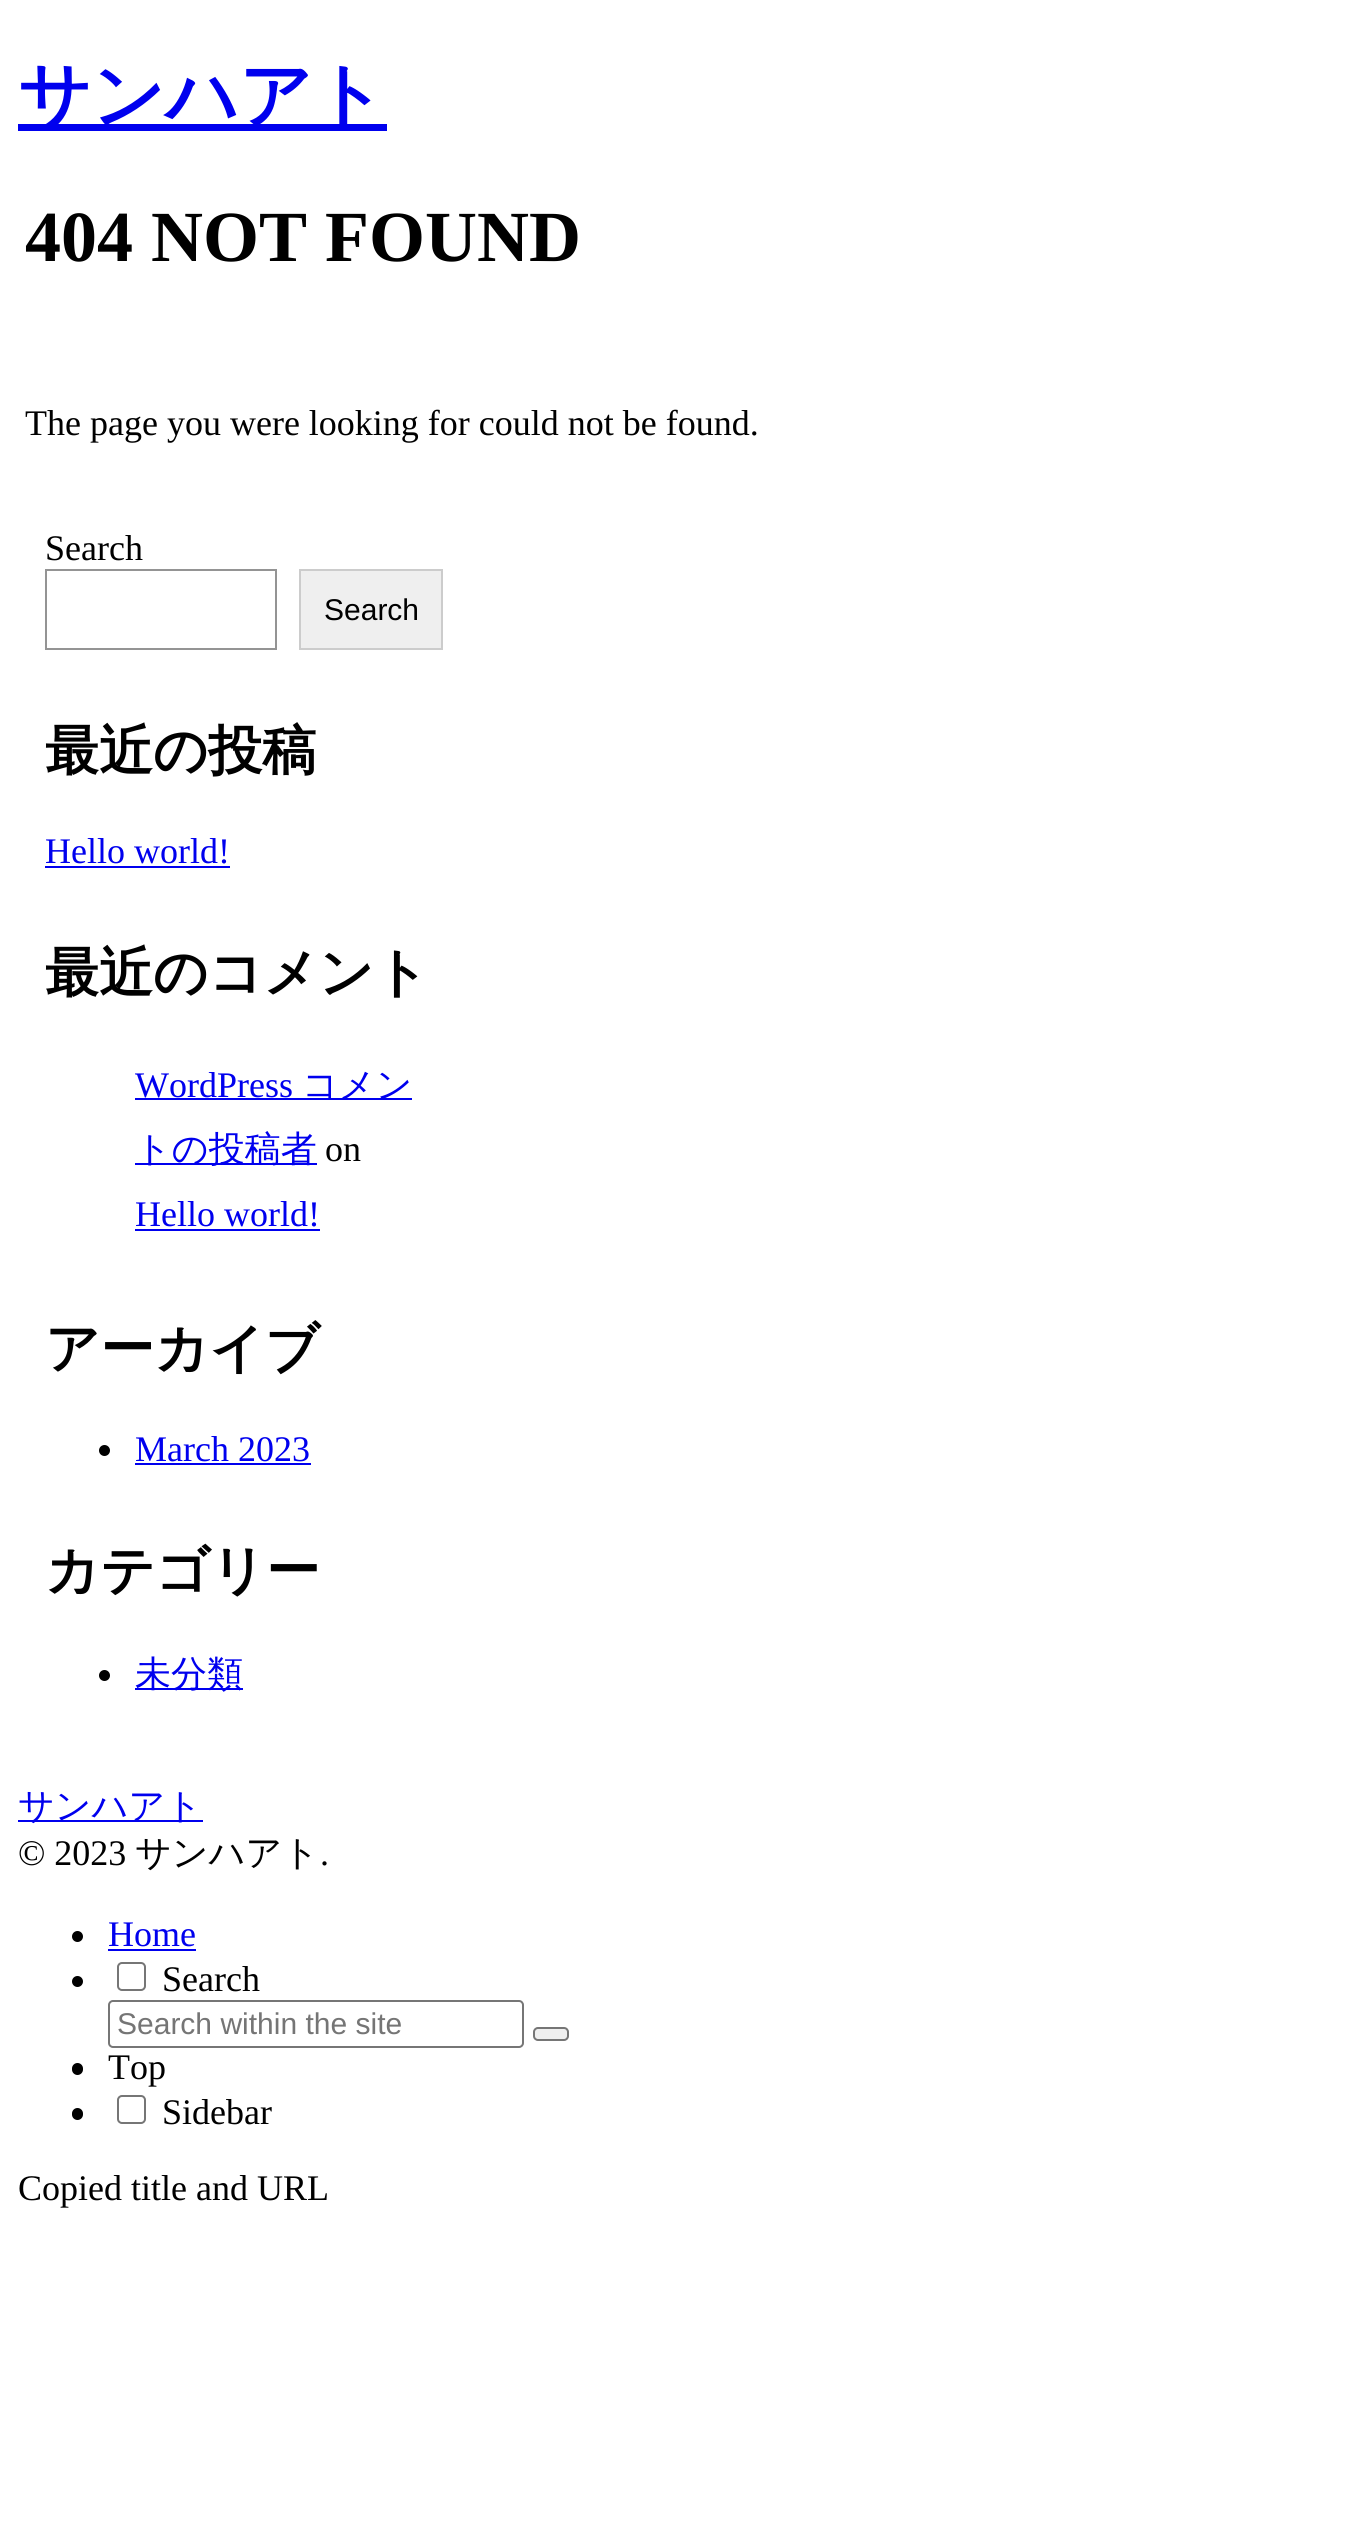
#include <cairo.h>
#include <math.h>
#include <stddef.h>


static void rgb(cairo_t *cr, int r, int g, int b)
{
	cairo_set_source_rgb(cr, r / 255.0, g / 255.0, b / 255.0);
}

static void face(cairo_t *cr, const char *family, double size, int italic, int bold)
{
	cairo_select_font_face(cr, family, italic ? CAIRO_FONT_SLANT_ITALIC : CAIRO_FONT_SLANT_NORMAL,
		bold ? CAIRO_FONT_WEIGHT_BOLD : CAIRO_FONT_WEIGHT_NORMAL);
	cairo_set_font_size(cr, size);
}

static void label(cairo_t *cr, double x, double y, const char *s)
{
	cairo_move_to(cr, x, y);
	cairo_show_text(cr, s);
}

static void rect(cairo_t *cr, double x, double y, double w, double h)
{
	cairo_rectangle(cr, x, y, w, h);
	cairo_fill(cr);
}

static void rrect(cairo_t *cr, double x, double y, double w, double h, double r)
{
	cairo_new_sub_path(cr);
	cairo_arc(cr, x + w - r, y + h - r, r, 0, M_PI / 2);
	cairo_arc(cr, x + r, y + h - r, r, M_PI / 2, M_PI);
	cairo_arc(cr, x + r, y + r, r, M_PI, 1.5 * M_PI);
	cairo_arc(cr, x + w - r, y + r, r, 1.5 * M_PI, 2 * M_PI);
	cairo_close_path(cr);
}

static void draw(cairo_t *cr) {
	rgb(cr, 255, 255, 255);
	cairo_paint(cr);
	rgb(cr, 0, 0, 238);
	rect(cr, 18, 124, 369, 7);
	face(cr, "WenQuanYi Zen Hei", 72, 0, 1);
	label(cr, 18, 120, "サンハアト");
	face(cr, "Liberation Serif", 72, 0, 1);
	rgb(cr, 0, 0, 0);
	label(cr, 25, 261, "404 NOT FOUND");
	face(cr, "Liberation Serif", 36, 0, 0);
	label(cr, 25, 435, "The page you were looking for could not be found.");
	label(cr, 45, 560, "Search");
	cairo_rectangle(cr, 46, 570, 230, 79);
	rgb(cr, 148, 148, 148);
	cairo_stroke(cr);
	rgb(cr, 239, 239, 239);
	cairo_rectangle(cr, 300, 570, 142, 79);
	cairo_fill_preserve(cr);
	rgb(cr, 204, 204, 204);
	cairo_stroke(cr);
	face(cr, "Liberation Sans", 30, 0, 0);
	rgb(cr, 0, 0, 0);
	label(cr, 324, 620, "Search");
	face(cr, "WenQuanYi Zen Hei", 54, 0, 1);
	label(cr, 45, 769, "最近の投稿");
	face(cr, "Liberation Serif", 36, 0, 0);
	rgb(cr, 0, 0, 238);
	label(cr, 45, 863, "Hello world!");
	rect(cr, 45, 866, 185, 2);
	face(cr, "WenQuanYi Zen Hei", 54, 0, 1);
	rgb(cr, 0, 0, 0);
	label(cr, 45, 991, "最近のコメント");
	face(cr, "Liberation Serif", 36, 0, 0);
	rgb(cr, 0, 0, 238);
	label(cr, 135, 1097, "WordPress");
	rect(cr, 135, 1098, 277, 2);
	face(cr, "WenQuanYi Zen Hei Medium", 36, 0, 0);
	label(cr, 302, 1097, "コメン");
	rect(cr, 135, 1163, 182, 2);
	label(cr, 135, 1161, "トの投稿者");
	face(cr, "Liberation Serif", 36, 0, 0);
	rgb(cr, 0, 0, 0);
	label(cr, 325, 1161, "on");
	rgb(cr, 0, 0, 238);
	label(cr, 135, 1226, "Hello world!");
	rect(cr, 135, 1229, 185, 2);
	face(cr, "WenQuanYi Zen Hei", 54, 0, 1);
	rgb(cr, 0, 0, 0);
	label(cr, 45, 1367, "アーカイブ");
	cairo_new_path(cr);
	cairo_arc(cr, 104.5, 1450.5, 5.5, 0, 2 * M_PI);
	cairo_fill(cr);
	face(cr, "Liberation Serif", 36, 0, 0);
	rgb(cr, 0, 0, 238);
	label(cr, 135, 1461, "March 2023");
	rect(cr, 135, 1463, 176, 2);
	face(cr, "WenQuanYi Zen Hei", 54, 0, 1);
	rgb(cr, 0, 0, 0);
	label(cr, 45, 1589, "カテゴリー");
	cairo_new_path(cr);
	cairo_arc(cr, 104.5, 1675.5, 5.5, 0, 2 * M_PI);
	cairo_fill(cr);
	rgb(cr, 0, 0, 238);
	rect(cr, 135, 1688, 108, 2);
	face(cr, "WenQuanYi Zen Hei Medium", 36, 0, 0);
	label(cr, 135, 1686, "未分類");
	rect(cr, 18, 1820, 185, 2);
	label(cr, 18, 1818, "サンハアト");
	face(cr, "Liberation Serif", 36, 0, 0);
	rgb(cr, 0, 0, 0);
	label(cr, 18, 1865, "© 2023");
	face(cr, "WenQuanYi Zen Hei Medium", 36, 0, 0);
	label(cr, 135, 1865, "サンハアト");
	face(cr, "Liberation Serif", 36, 0, 0);
	label(cr, 320, 1865, ".");
	cairo_new_path(cr);
	cairo_arc(cr, 77.5, 1936.5, 5.5, 0, 2 * M_PI);
	cairo_fill(cr);
	rgb(cr, 0, 0, 238);
	label(cr, 108, 1946, "Home");
	rect(cr, 108, 1949, 88, 2);
	rgb(cr, 0, 0, 0);
	cairo_new_path(cr);
	cairo_arc(cr, 77.5, 1981.5, 5.5, 0, 2 * M_PI);
	cairo_fill(cr);
	rrect(cr, 118, 1963, 27, 27, 4);
	rgb(cr, 118, 118, 118);
	cairo_stroke(cr);
	rgb(cr, 0, 0, 0);
	label(cr, 162, 1991, "Search");
	rrect(cr, 109, 2001, 414, 46, 4);
	rgb(cr, 118, 118, 118);
	cairo_stroke(cr);
	face(cr, "Liberation Sans", 30, 0, 0);
	rgb(cr, 117, 117, 117);
	label(cr, 117, 2034, "Search within the site");
	rgb(cr, 239, 239, 239);
	rrect(cr, 534, 2028, 34, 12, 4);
	cairo_fill_preserve(cr);
	rgb(cr, 118, 118, 118);
	cairo_stroke(cr);
	rgb(cr, 0, 0, 0);
	rrect(cr, 72, 2063, 11, 12, 5.5);
	cairo_fill(cr);
	face(cr, "Liberation Serif", 36, 0, 0);
	label(cr, 108, 2079, "Top");
	rrect(cr, 72, 2108, 11, 12, 5.5);
	cairo_fill(cr);
	rrect(cr, 118, 2096, 27, 27, 4);
	rgb(cr, 118, 118, 118);
	cairo_stroke(cr);
	rgb(cr, 0, 0, 0);
	label(cr, 162, 2124, "Sidebar");
	label(cr, 18, 2200, "Copied title and URL");
}

int main(void) {
	cairo_surface_t *surface = cairo_image_surface_create(CAIRO_FORMAT_RGB24, 1366, 2536);
	cairo_t *cr = cairo_create(surface);
	cairo_font_options_t *options = cairo_font_options_create();
	cairo_font_options_set_hint_metrics(options, CAIRO_HINT_METRICS_OFF);
	cairo_font_options_set_hint_style(options, CAIRO_HINT_STYLE_NONE);
	cairo_set_font_options(cr, options);
	cairo_set_miter_limit(cr, 4);
	draw(cr);
	cairo_surface_write_to_png(surface, "render.png");
	cairo_font_options_destroy(options);
	cairo_destroy(cr);
	cairo_surface_destroy(surface);
	return 0;
}
